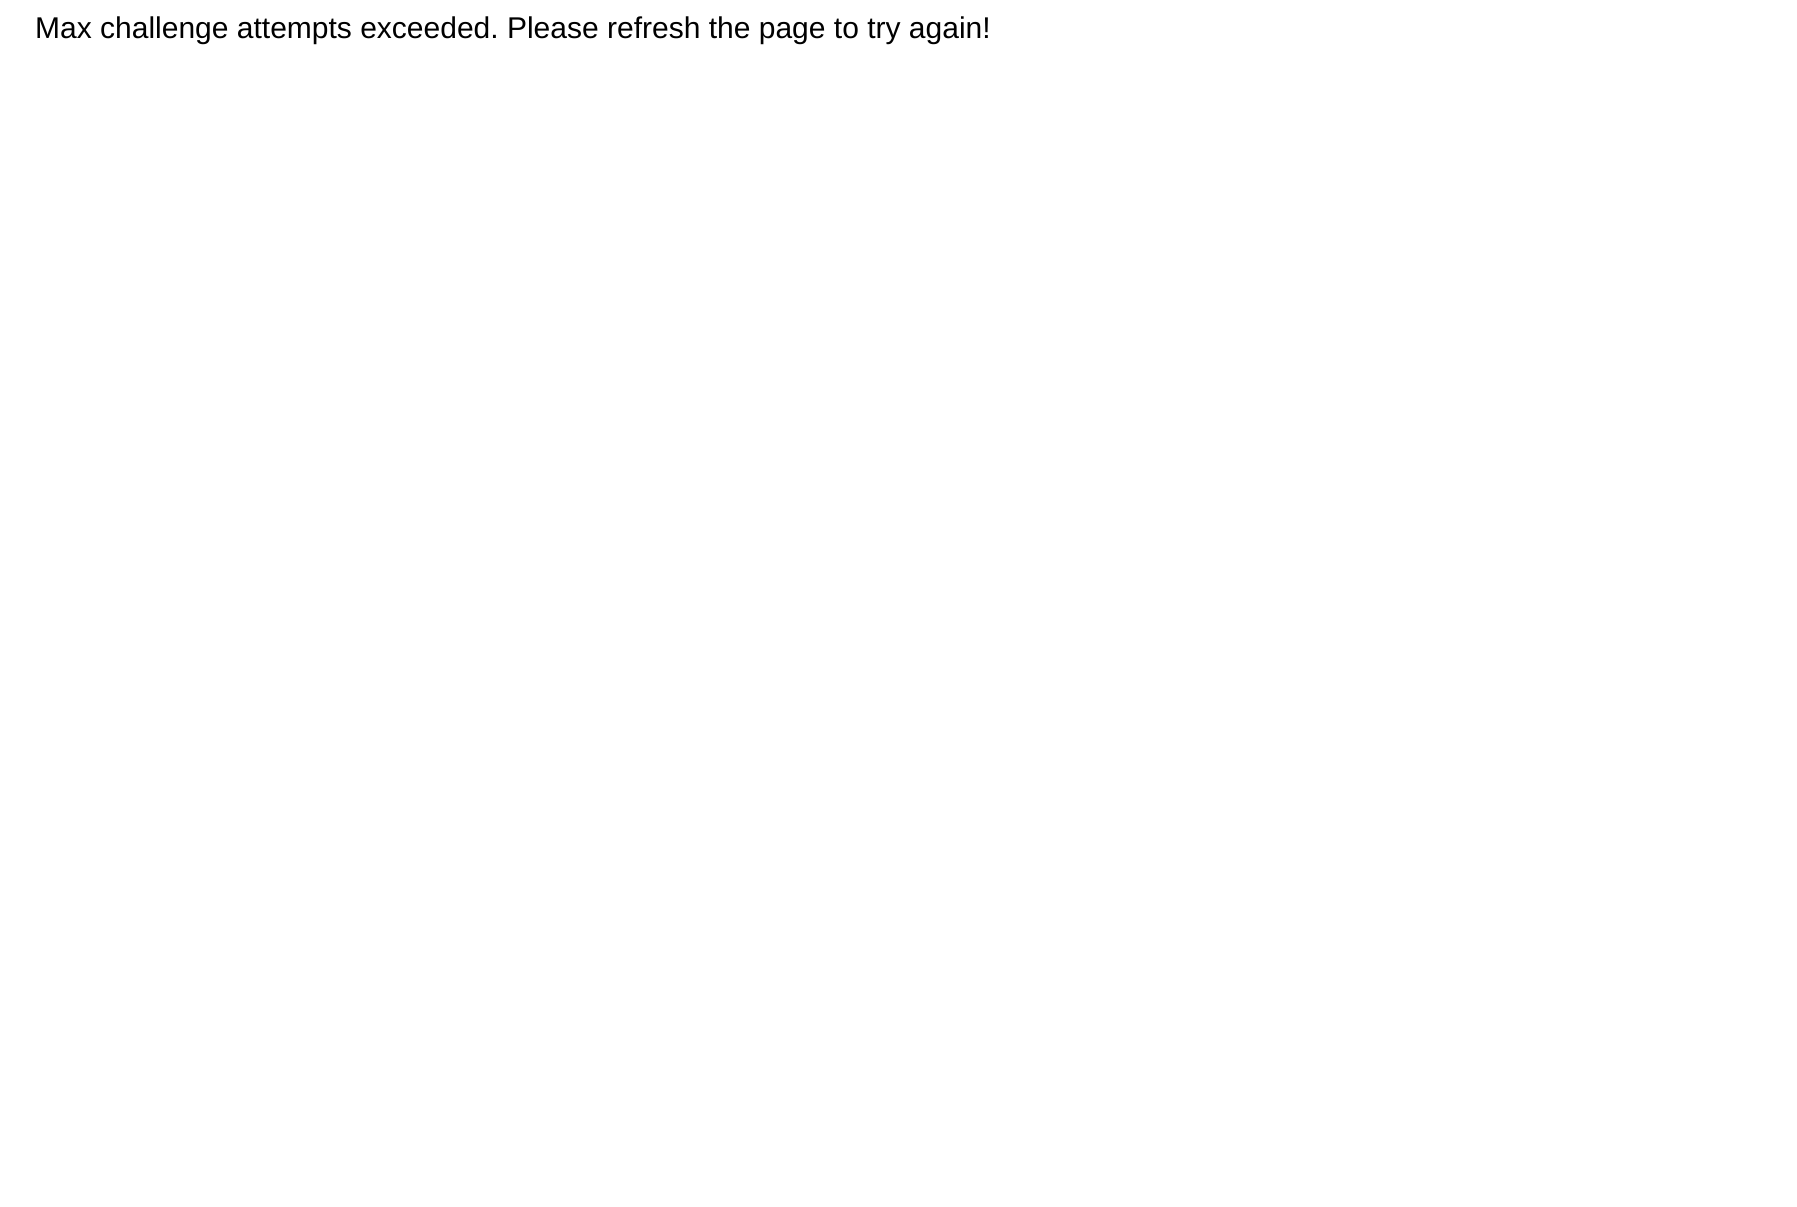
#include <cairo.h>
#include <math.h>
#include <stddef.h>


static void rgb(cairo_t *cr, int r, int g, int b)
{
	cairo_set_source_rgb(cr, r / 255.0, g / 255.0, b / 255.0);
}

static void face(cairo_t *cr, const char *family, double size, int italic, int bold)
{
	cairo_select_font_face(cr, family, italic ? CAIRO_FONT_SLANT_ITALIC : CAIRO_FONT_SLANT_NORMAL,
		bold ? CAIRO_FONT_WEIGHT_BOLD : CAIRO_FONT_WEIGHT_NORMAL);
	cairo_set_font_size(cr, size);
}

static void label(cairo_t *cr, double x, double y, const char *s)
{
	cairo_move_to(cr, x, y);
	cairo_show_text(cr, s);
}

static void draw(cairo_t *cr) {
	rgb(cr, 255, 255, 255);
	cairo_paint(cr);
	face(cr, "Liberation Sans", 30, 0, 0);
	rgb(cr, 0, 0, 0);
	label(cr, 35, 38, "Max challenge attempts exceeded. Please refresh the page to try again!");
}

int main(void) {
	cairo_surface_t *surface = cairo_image_surface_create(CAIRO_FORMAT_RGB24, 1797, 1207);
	cairo_t *cr = cairo_create(surface);
	cairo_font_options_t *options = cairo_font_options_create();
	cairo_font_options_set_hint_metrics(options, CAIRO_HINT_METRICS_OFF);
	cairo_font_options_set_hint_style(options, CAIRO_HINT_STYLE_NONE);
	cairo_set_font_options(cr, options);
	cairo_set_miter_limit(cr, 4);
	draw(cr);
	cairo_surface_write_to_png(surface, "render.png");
	cairo_font_options_destroy(options);
	cairo_destroy(cr);
	cairo_surface_destroy(surface);
	return 0;
}
